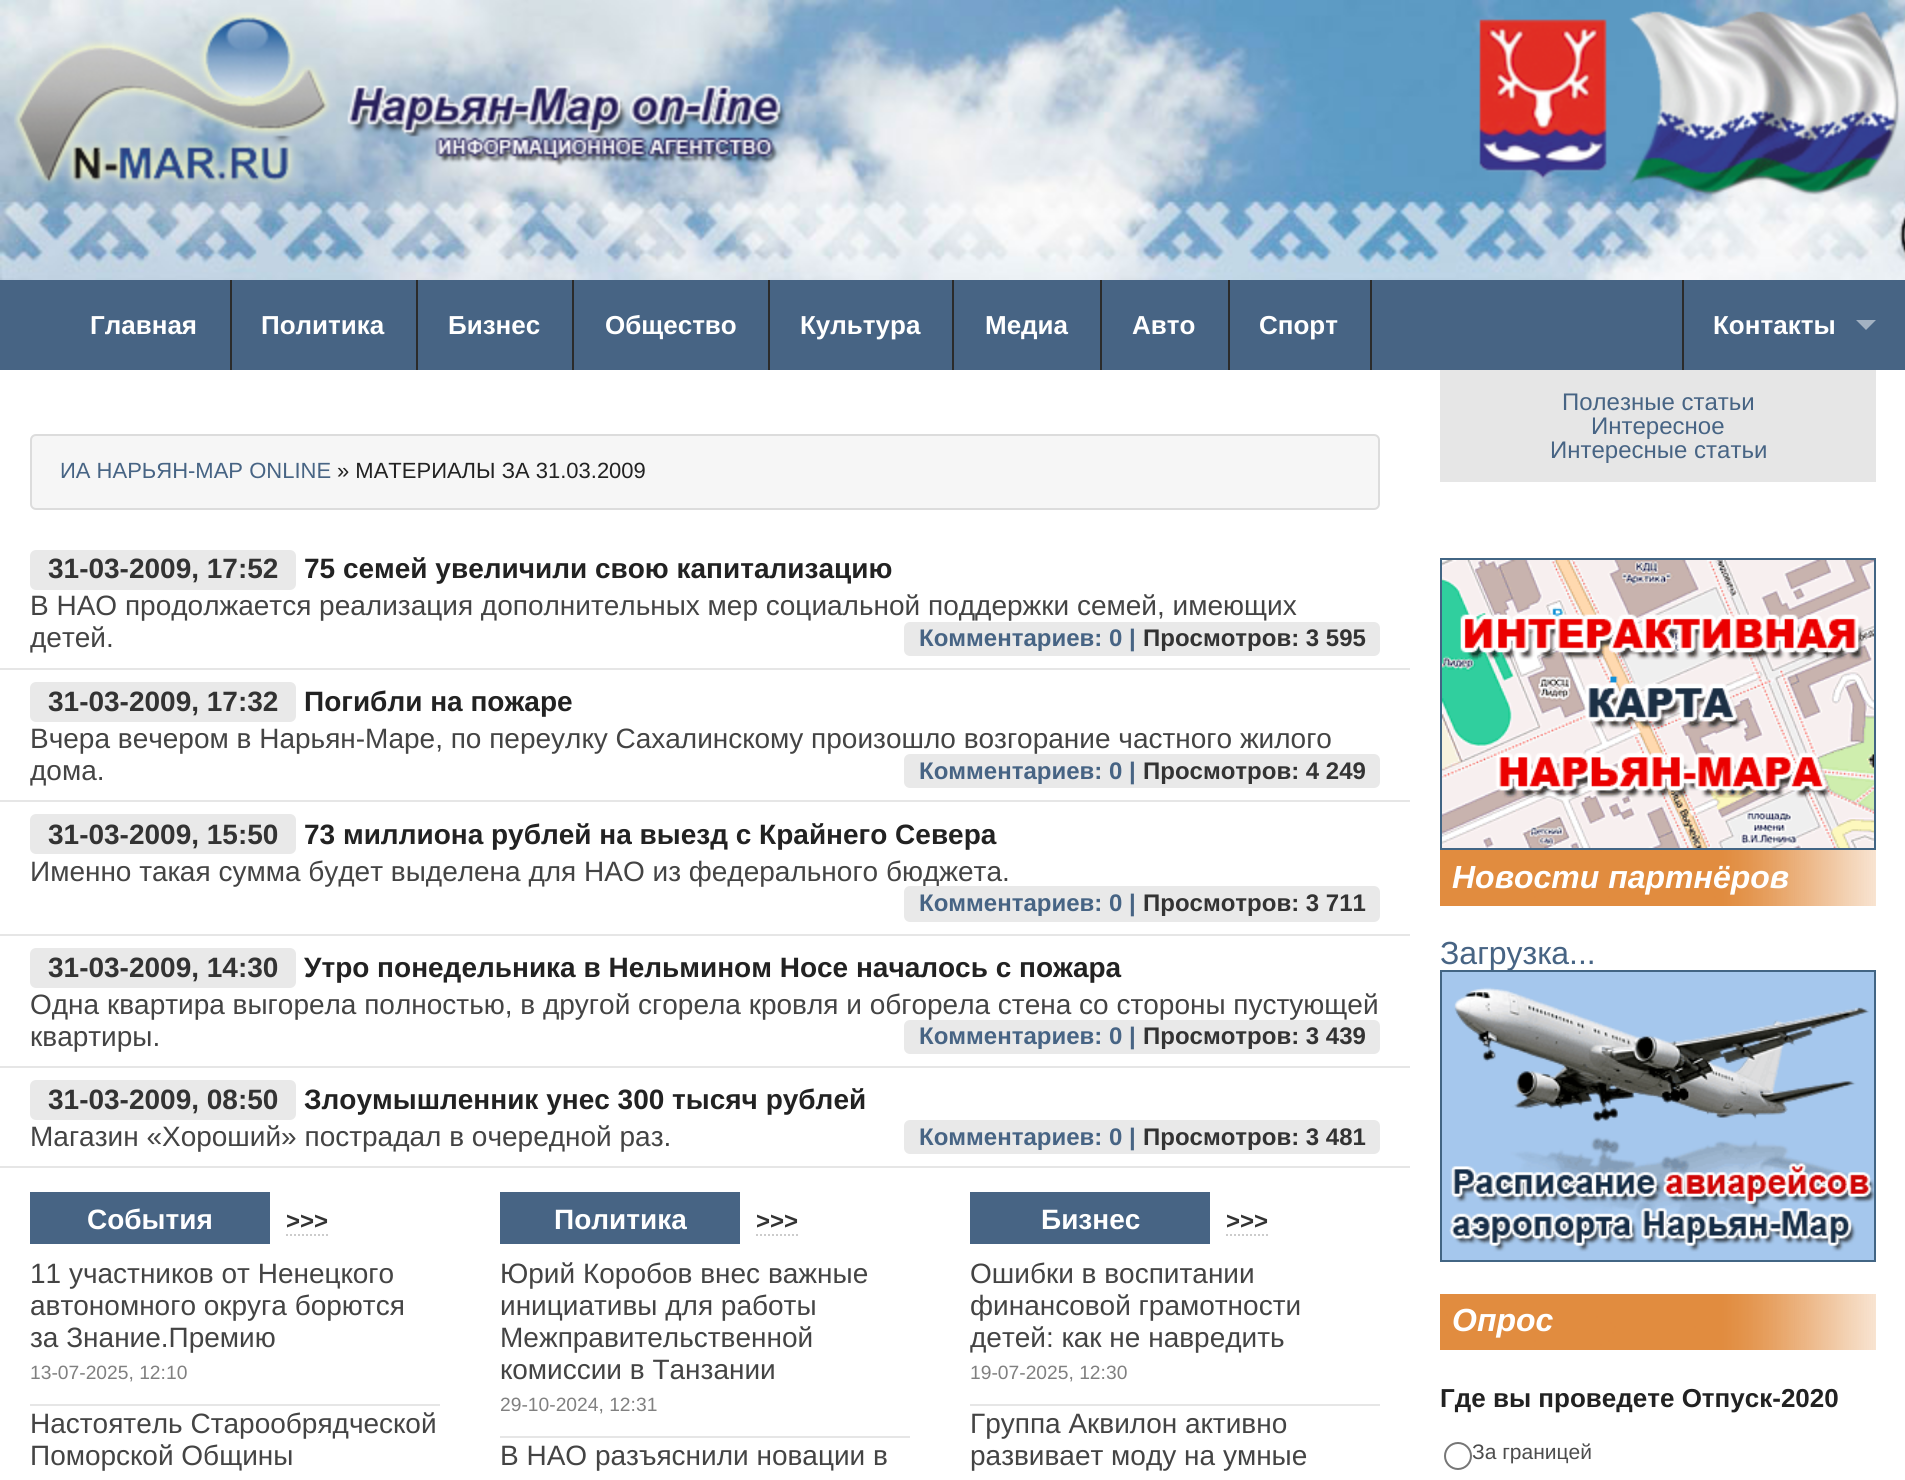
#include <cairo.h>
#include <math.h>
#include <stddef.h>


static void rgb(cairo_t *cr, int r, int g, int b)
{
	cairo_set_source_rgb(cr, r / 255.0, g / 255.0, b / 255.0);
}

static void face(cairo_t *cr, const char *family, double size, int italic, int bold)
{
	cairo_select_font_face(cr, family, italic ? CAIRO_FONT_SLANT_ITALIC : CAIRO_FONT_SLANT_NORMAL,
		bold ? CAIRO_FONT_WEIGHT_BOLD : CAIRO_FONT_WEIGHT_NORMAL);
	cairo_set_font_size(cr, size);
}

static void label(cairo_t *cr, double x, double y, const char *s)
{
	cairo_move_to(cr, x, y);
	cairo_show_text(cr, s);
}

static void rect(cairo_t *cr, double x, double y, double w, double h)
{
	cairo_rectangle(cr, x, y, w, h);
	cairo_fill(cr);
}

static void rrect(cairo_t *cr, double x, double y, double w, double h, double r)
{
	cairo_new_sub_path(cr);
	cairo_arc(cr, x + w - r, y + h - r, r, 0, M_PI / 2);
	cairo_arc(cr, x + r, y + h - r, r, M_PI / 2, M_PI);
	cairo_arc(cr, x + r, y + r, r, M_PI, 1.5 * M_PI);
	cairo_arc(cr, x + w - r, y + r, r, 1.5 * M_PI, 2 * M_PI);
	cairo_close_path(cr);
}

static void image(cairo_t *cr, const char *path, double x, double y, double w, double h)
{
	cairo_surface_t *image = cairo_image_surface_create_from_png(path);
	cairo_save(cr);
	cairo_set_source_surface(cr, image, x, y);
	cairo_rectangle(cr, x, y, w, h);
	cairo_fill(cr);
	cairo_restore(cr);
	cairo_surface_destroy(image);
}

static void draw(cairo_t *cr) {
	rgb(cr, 255, 255, 255);
	cairo_paint(cr);
	image(cr, "image0.png", 0, 0, 1905, 280);
	image(cr, "image1.png", 14, 12, 772, 175);
	image(cr, "image2.png", 1479, 11, 421, 187);
	rgb(cr, 71, 100, 132);
	rect(cr, 0, 280, 1905, 90);
	face(cr, "Liberation Sans", 26, 0, 1);
	rgb(cr, 255, 255, 255);
	label(cr, 90, 334, "Главная");
	rgb(cr, 43, 43, 43);
	rect(cr, 230, 280, 2, 90);
	rgb(cr, 255, 255, 255);
	label(cr, 261, 334, "Политика");
	rgb(cr, 43, 43, 43);
	rect(cr, 416, 280, 2, 90);
	rgb(cr, 255, 255, 255);
	label(cr, 448, 334, "Бизнес");
	rgb(cr, 43, 43, 43);
	rect(cr, 572, 280, 2, 90);
	rgb(cr, 255, 255, 255);
	label(cr, 605, 334, "Общество");
	rgb(cr, 43, 43, 43);
	rect(cr, 768, 280, 2, 90);
	rgb(cr, 255, 255, 255);
	label(cr, 800, 334, "Культура");
	rgb(cr, 43, 43, 43);
	rect(cr, 952, 280, 2, 90);
	rgb(cr, 255, 255, 255);
	label(cr, 985, 334, "Медиа");
	rgb(cr, 43, 43, 43);
	rect(cr, 1100, 280, 2, 90);
	rgb(cr, 255, 255, 255);
	label(cr, 1132, 334, "Авто");
	rgb(cr, 43, 43, 43);
	rect(cr, 1228, 280, 2, 90);
	rgb(cr, 255, 255, 255);
	label(cr, 1259, 334, "Спорт");
	rgb(cr, 43, 43, 43);
	rect(cr, 1370, 280, 2, 90);
	rect(cr, 1682, 280, 2, 90);
	rgb(cr, 255, 255, 255);
	label(cr, 1713, 334, "Контакты");
	rgb(cr, 163, 178, 194);
	cairo_new_path(cr);
	cairo_move_to(cr, 1856, 320);
	cairo_line_to(cr, 1876, 320);
	cairo_line_to(cr, 1866, 330);
	cairo_close_path(cr);
	cairo_fill(cr);
	rgb(cr, 246, 246, 246);
	rrect(cr, 31, 435, 1348, 74, 5);
	cairo_fill_preserve(cr);
	rgb(cr, 220, 220, 220);
	cairo_stroke(cr);
	face(cr, "Liberation Sans", 22, 0, 0);
	rgb(cr, 71, 100, 132);
	label(cr, 60, 478, "ИА НАРЬЯН-МАР ONLINE");
	rgb(cr, 34, 34, 34);
	label(cr, 337, 478, "» МАТЕРИАЛЫ ЗА 31.03.2009");
	rgb(cr, 230, 230, 230);
	rect(cr, 0, 668, 1410, 2);
	rgb(cr, 233, 233, 233);
	rrect(cr, 30, 550, 266, 40, 6);
	cairo_fill(cr);
	face(cr, "Liberation Sans", 28, 0, 1);
	rgb(cr, 51, 51, 51);
	label(cr, 48, 578, "31-03-2009, 17:52");
	rgb(cr, 34, 34, 34);
	label(cr, 304, 578, "75 семей увеличили свою капитализацию");
	face(cr, "Liberation Sans", 28, 0, 0);
	rgb(cr, 68, 68, 68);
	label(cr, 30, 615, "В НАО продолжается реализация дополнительных мер социальной поддержки семей, имеющих");
	label(cr, 30, 647, "детей.");
	rgb(cr, 233, 233, 233);
	rrect(cr, 904, 622, 476, 34, 6);
	cairo_fill(cr);
	face(cr, "Liberation Sans", 24, 0, 1);
	rgb(cr, 71, 100, 132);
	label(cr, 919, 646, "Комментариев: 0 |");
	rgb(cr, 51, 51, 51);
	label(cr, 1143, 646, "Просмотров: 3 595");
	rgb(cr, 230, 230, 230);
	rect(cr, 0, 800, 1410, 2);
	rgb(cr, 233, 233, 233);
	rrect(cr, 30, 682, 266, 40, 6);
	cairo_fill(cr);
	face(cr, "Liberation Sans", 28, 0, 1);
	rgb(cr, 51, 51, 51);
	label(cr, 48, 711, "31-03-2009, 17:32");
	rgb(cr, 34, 34, 34);
	label(cr, 304, 711, "Погибли на пожаре");
	face(cr, "Liberation Sans", 28, 0, 0);
	rgb(cr, 68, 68, 68);
	label(cr, 30, 748, "Вчера вечером в Нарьян-Маре, по переулку Сахалинскому произошло возгорание частного жилого");
	label(cr, 30, 780, "дома.");
	rgb(cr, 233, 233, 233);
	rrect(cr, 904, 754, 476, 34, 6);
	cairo_fill(cr);
	face(cr, "Liberation Sans", 24, 0, 1);
	rgb(cr, 71, 100, 132);
	label(cr, 919, 779, "Комментариев: 0 |");
	rgb(cr, 51, 51, 51);
	label(cr, 1143, 779, "Просмотров: 4 249");
	rgb(cr, 230, 230, 230);
	rect(cr, 0, 934, 1410, 2);
	rgb(cr, 233, 233, 233);
	rrect(cr, 30, 814, 266, 40, 6);
	cairo_fill(cr);
	face(cr, "Liberation Sans", 28, 0, 1);
	rgb(cr, 51, 51, 51);
	label(cr, 48, 844, "31-03-2009, 15:50");
	rgb(cr, 34, 34, 34);
	label(cr, 304, 844, "73 миллиона рублей на выезд с Крайнего Севера");
	face(cr, "Liberation Sans", 28, 0, 0);
	rgb(cr, 68, 68, 68);
	label(cr, 30, 881, "Именно такая сумма будет выделена для НАО из федерального бюджета.");
	rgb(cr, 233, 233, 233);
	rrect(cr, 904, 886, 476, 36, 6);
	cairo_fill(cr);
	face(cr, "Liberation Sans", 24, 0, 1);
	rgb(cr, 71, 100, 132);
	label(cr, 919, 911, "Комментариев: 0 |");
	rgb(cr, 51, 51, 51);
	label(cr, 1143, 911, "Просмотров: 3 711");
	rgb(cr, 230, 230, 230);
	rect(cr, 0, 1066, 1410, 2);
	rgb(cr, 233, 233, 233);
	rrect(cr, 30, 948, 266, 40, 6);
	cairo_fill(cr);
	face(cr, "Liberation Sans", 28, 0, 1);
	rgb(cr, 51, 51, 51);
	label(cr, 48, 977, "31-03-2009, 14:30");
	rgb(cr, 34, 34, 34);
	label(cr, 304, 977, "Утро понедельника в Нельмином Носе началось с пожара");
	face(cr, "Liberation Sans", 28, 0, 0);
	rgb(cr, 68, 68, 68);
	label(cr, 30, 1014, "Одна квартира выгорела полностью, в другой сгорела кровля и обгорела стена со стороны пустующей");
	label(cr, 30, 1046, "квартиры.");
	rgb(cr, 233, 233, 233);
	rrect(cr, 904, 1020, 476, 34, 6);
	cairo_fill(cr);
	face(cr, "Liberation Sans", 24, 0, 1);
	rgb(cr, 71, 100, 132);
	label(cr, 919, 1044, "Комментариев: 0 |");
	rgb(cr, 51, 51, 51);
	label(cr, 1143, 1044, "Просмотров: 3 439");
	rgb(cr, 230, 230, 230);
	rect(cr, 0, 1166, 1410, 2);
	rgb(cr, 233, 233, 233);
	rrect(cr, 30, 1080, 266, 40, 6);
	cairo_fill(cr);
	face(cr, "Liberation Sans", 28, 0, 1);
	rgb(cr, 51, 51, 51);
	label(cr, 48, 1109, "31-03-2009, 08:50");
	rgb(cr, 34, 34, 34);
	label(cr, 304, 1109, "Злоумышленник унес 300 тысяч рублей");
	face(cr, "Liberation Sans", 28, 0, 0);
	rgb(cr, 68, 68, 68);
	label(cr, 30, 1146, "Магазин «Хороший» пострадал в очередной раз.");
	rgb(cr, 233, 233, 233);
	rrect(cr, 904, 1120, 476, 34, 6);
	cairo_fill(cr);
	face(cr, "Liberation Sans", 24, 0, 1);
	rgb(cr, 71, 100, 132);
	label(cr, 919, 1145, "Комментариев: 0 |");
	rgb(cr, 51, 51, 51);
	label(cr, 1143, 1145, "Просмотров: 3 481");
	rgb(cr, 71, 100, 132);
	rect(cr, 30, 1192, 240, 52);
	face(cr, "Liberation Sans", 28, 0, 1);
	rgb(cr, 255, 255, 255);
	label(cr, 87, 1229, "События");
	face(cr, "Liberation Sans", 24, 0, 1);
	rgb(cr, 51, 51, 51);
	label(cr, 286, 1229, ">>>");
	cairo_new_path(cr);
	cairo_move_to(cr, 286, 1235);
	cairo_line_to(cr, 328, 1235);
	rgb(cr, 204, 204, 204);
	cairo_set_dash(cr, (double[]){2, 2}, 2, 0);
	cairo_stroke(cr);
	rgb(cr, 230, 230, 230);
	rect(cr, 30, 1404, 410, 2);
	face(cr, "Liberation Sans", 28, 0, 0);
	rgb(cr, 68, 68, 68);
	label(cr, 30, 1283, "11 участников от Ненецкого");
	label(cr, 30, 1315, "автономного округа борются");
	label(cr, 30, 1347, "за Знание.Премию");
	face(cr, "Liberation Sans", 19.25, 0, 0);
	rgb(cr, 128, 128, 128);
	label(cr, 30, 1379, "13-07-2025, 12:10");
	face(cr, "Liberation Sans", 28, 0, 0);
	rgb(cr, 68, 68, 68);
	label(cr, 30, 1433, "Настоятель Старообрядческой");
	label(cr, 30, 1465, "Поморской Общины");
	rgb(cr, 71, 100, 132);
	rect(cr, 500, 1192, 240, 52);
	face(cr, "Liberation Sans", 28, 0, 1);
	rgb(cr, 255, 255, 255);
	label(cr, 554, 1229, "Политика");
	face(cr, "Liberation Sans", 24, 0, 1);
	rgb(cr, 51, 51, 51);
	label(cr, 756, 1229, ">>>");
	cairo_new_path(cr);
	cairo_move_to(cr, 756, 1235);
	cairo_line_to(cr, 798, 1235);
	rgb(cr, 204, 204, 204);
	cairo_stroke(cr);
	rgb(cr, 230, 230, 230);
	rect(cr, 500, 1436, 410, 2);
	face(cr, "Liberation Sans", 28, 0, 0);
	rgb(cr, 68, 68, 68);
	label(cr, 500, 1283, "Юрий Коробов внес важные");
	label(cr, 500, 1315, "инициативы для работы");
	label(cr, 500, 1347, "Межправительственной");
	label(cr, 500, 1379, "комиссии в Танзании");
	face(cr, "Liberation Sans", 19.25, 0, 0);
	rgb(cr, 128, 128, 128);
	label(cr, 500, 1411, "29-10-2024, 12:31");
	face(cr, "Liberation Sans", 28, 0, 0);
	rgb(cr, 68, 68, 68);
	label(cr, 500, 1465, "В НАО разъяснили новации в");
	rgb(cr, 71, 100, 132);
	rect(cr, 970, 1192, 240, 52);
	face(cr, "Liberation Sans", 28, 0, 1);
	rgb(cr, 255, 255, 255);
	label(cr, 1041, 1229, "Бизнес");
	face(cr, "Liberation Sans", 24, 0, 1);
	rgb(cr, 51, 51, 51);
	label(cr, 1226, 1229, ">>>");
	cairo_new_path(cr);
	cairo_move_to(cr, 1226, 1235);
	cairo_line_to(cr, 1268, 1235);
	rgb(cr, 204, 204, 204);
	cairo_stroke(cr);
	rgb(cr, 230, 230, 230);
	rect(cr, 970, 1404, 410, 2);
	face(cr, "Liberation Sans", 28, 0, 0);
	rgb(cr, 68, 68, 68);
	label(cr, 970, 1283, "Ошибки в воспитании");
	label(cr, 970, 1315, "финансовой грамотности");
	label(cr, 970, 1347, "детей: как не навредить");
	face(cr, "Liberation Sans", 19.25, 0, 0);
	rgb(cr, 128, 128, 128);
	label(cr, 970, 1379, "19-07-2025, 12:30");
	face(cr, "Liberation Sans", 28, 0, 0);
	rgb(cr, 68, 68, 68);
	label(cr, 970, 1433, "Группа Аквилон активно");
	label(cr, 970, 1465, "развивает моду на умные");
	rgb(cr, 230, 230, 230);
	rect(cr, 1440, 370, 436, 112);
	face(cr, "Liberation Sans", 24, 0, 0);
	rgb(cr, 71, 100, 132);
	label(cr, 1562, 410, "Полезные статьи");
	label(cr, 1591, 434, "Интересное");
	label(cr, 1550, 458, "Интересные статьи");
	cairo_rectangle(cr, 1441, 559, 434, 290);
	rgb(cr, 66, 101, 132);
	cairo_set_dash(cr, NULL, 0, 0);
	cairo_stroke(cr);
	image(cr, "image3.png", 1442, 560, 432, 288);
	image(cr, "image4.png", 1440, 850, 436, 56);
	face(cr, "Liberation Sans", 32, 1, 1);
	rgb(cr, 255, 255, 255);
	label(cr, 1452, 888, "Новости партнёров");
	face(cr, "Liberation Sans", 32, 0, 0);
	rgb(cr, 71, 100, 132);
	label(cr, 1440, 964, "Загрузка...");
	cairo_rectangle(cr, 1441, 971, 434, 290);
	rgb(cr, 66, 101, 132);
	cairo_stroke(cr);
	image(cr, "image5.png", 1442, 972, 432, 288);
	image(cr, "image4.png", 1440, 1294, 436, 56);
	face(cr, "Liberation Sans", 32, 1, 1);
	rgb(cr, 255, 255, 255);
	label(cr, 1452, 1331, "Опрос");
	face(cr, "Liberation Sans", 26, 0, 1);
	rgb(cr, 34, 34, 34);
	label(cr, 1440, 1407, "Где вы проведете Отпуск-2020");
	cairo_new_path(cr);
	cairo_arc(cr, 1458, 1456, 13, 0, 2 * M_PI);
	rgb(cr, 118, 118, 118);
	cairo_stroke(cr);
	face(cr, "Liberation Sans", 21, 0, 0);
	rgb(cr, 77, 77, 77);
	label(cr, 1472, 1459, "За границей");
}

int main(void) {
	cairo_surface_t *surface = cairo_image_surface_create(CAIRO_FORMAT_RGB24, 1905, 1480);
	cairo_t *cr = cairo_create(surface);
	cairo_font_options_t *options = cairo_font_options_create();
	cairo_font_options_set_hint_metrics(options, CAIRO_HINT_METRICS_OFF);
	cairo_font_options_set_hint_style(options, CAIRO_HINT_STYLE_NONE);
	cairo_set_font_options(cr, options);
	cairo_set_miter_limit(cr, 4);
	draw(cr);
	cairo_surface_write_to_png(surface, "render.png");
	cairo_font_options_destroy(options);
	cairo_destroy(cr);
	cairo_surface_destroy(surface);
	return 0;
}
